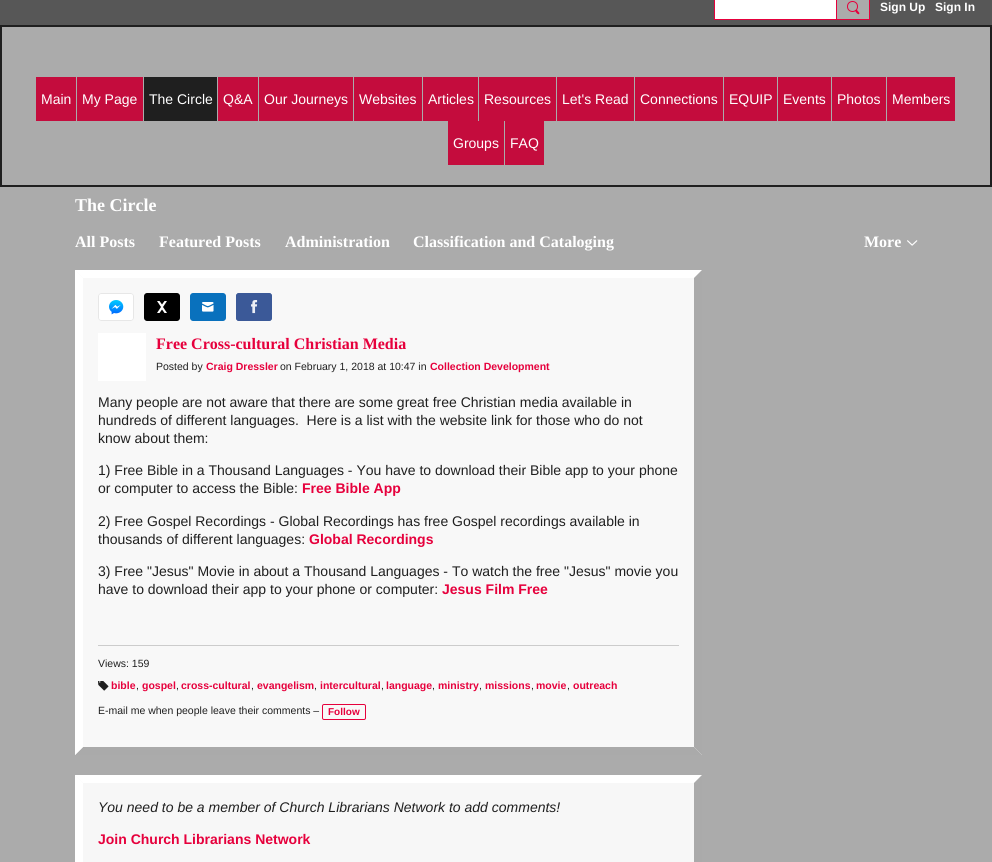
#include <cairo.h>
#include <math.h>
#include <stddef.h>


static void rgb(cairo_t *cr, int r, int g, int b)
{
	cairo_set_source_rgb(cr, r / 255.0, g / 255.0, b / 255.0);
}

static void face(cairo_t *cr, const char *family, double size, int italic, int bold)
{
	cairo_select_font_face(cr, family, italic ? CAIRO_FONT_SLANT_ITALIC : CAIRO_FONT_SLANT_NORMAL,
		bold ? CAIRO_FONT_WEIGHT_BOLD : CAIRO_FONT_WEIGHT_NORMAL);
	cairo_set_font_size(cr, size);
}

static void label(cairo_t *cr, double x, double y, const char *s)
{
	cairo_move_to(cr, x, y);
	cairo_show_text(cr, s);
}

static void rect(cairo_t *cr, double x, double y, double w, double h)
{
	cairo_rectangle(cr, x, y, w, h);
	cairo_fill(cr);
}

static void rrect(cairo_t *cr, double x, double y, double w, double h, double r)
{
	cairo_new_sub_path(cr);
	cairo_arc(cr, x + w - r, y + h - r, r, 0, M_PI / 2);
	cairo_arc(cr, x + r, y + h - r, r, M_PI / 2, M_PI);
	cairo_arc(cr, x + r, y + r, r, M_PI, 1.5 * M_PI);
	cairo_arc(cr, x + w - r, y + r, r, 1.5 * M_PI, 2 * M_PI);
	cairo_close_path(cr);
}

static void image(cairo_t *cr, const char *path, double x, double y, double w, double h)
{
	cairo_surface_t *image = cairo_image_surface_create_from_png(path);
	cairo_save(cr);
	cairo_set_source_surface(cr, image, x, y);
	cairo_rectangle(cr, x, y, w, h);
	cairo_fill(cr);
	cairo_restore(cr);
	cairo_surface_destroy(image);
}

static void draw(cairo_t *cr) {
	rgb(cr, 171, 171, 171);
	cairo_paint(cr);
	rgb(cr, 87, 87, 87);
	rect(cr, 0, 0, 992, 25);
	rgb(cr, 255, 255, 255);
	cairo_rectangle(cr, 714.5, -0.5, 122, 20);
	cairo_fill_preserve(cr);
	rgb(cr, 230, 0, 60);
	cairo_set_line_width(cr, 1);
	cairo_stroke(cr);
	rgb(cr, 171, 171, 171);
	cairo_rectangle(cr, 836.5, -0.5, 33, 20);
	cairo_fill_preserve(cr);
	rgb(cr, 230, 0, 60);
	cairo_stroke(cr);
	cairo_arc(cr, 852.5, 6.5, 5, 0, 2 * M_PI);
	cairo_stroke(cr);
	cairo_new_path(cr);
	cairo_move_to(cr, 857, 10);
	cairo_line_to(cr, 859, 12.5);
	cairo_curve_to(cr, 859.5, 13, 859.5, 13.5, 859, 14);
	cairo_curve_to(cr, 858, 15, 856, 12.5, 855.5, 11.5);
	cairo_curve_to(cr, 854.5, 10.5, 856, 9.5, 857, 10);
	cairo_close_path(cr);
	cairo_fill(cr);
	face(cr, "Liberation Sans", 12, 0, 1);
	rgb(cr, 255, 255, 255);
	label(cr, 880, 11, "Sign Up");
	label(cr, 935, 11, "Sign In");
	cairo_rectangle(cr, 0.5, 25.5, 991, 161);
	rgb(cr, 31, 31, 31);
	cairo_stroke(cr);
	cairo_rectangle(cr, 1.5, 26.5, 989, 159);
	cairo_stroke(cr);
	rgb(cr, 196, 12, 61);
	rect(cr, 36, 77, 40, 44);
	face(cr, "Liberation Sans", 14, 0, 0);
	rgb(cr, 255, 255, 255);
	label(cr, 41, 104, "Main");
	rgb(cr, 196, 12, 61);
	rect(cr, 77, 77, 66, 44);
	rgb(cr, 255, 255, 255);
	label(cr, 82, 104, "My Page");
	rgb(cr, 31, 31, 31);
	rect(cr, 144, 77, 73, 44);
	rgb(cr, 255, 255, 255);
	label(cr, 149, 104, "The Circle");
	rgb(cr, 196, 12, 61);
	rect(cr, 218, 77, 40, 44);
	rgb(cr, 255, 255, 255);
	label(cr, 223, 104, "Q&A");
	rgb(cr, 196, 12, 61);
	rect(cr, 259, 77, 94, 44);
	rgb(cr, 255, 255, 255);
	label(cr, 264, 104, "Our Journeys");
	rgb(cr, 196, 12, 61);
	rect(cr, 354, 77, 68, 44);
	rgb(cr, 255, 255, 255);
	label(cr, 359, 104, "Websites");
	rgb(cr, 196, 12, 61);
	rect(cr, 423, 77, 55, 44);
	rgb(cr, 255, 255, 255);
	label(cr, 428, 104, "Articles");
	rgb(cr, 196, 12, 61);
	rect(cr, 479, 77, 77, 44);
	rgb(cr, 255, 255, 255);
	label(cr, 484, 104, "Resources");
	rgb(cr, 196, 12, 61);
	rect(cr, 557, 77, 77, 44);
	rgb(cr, 255, 255, 255);
	label(cr, 562, 104, "Let's Read");
	rgb(cr, 196, 12, 61);
	rect(cr, 635, 77, 88, 44);
	rgb(cr, 255, 255, 255);
	label(cr, 640, 104, "Connections");
	rgb(cr, 196, 12, 61);
	rect(cr, 724, 77, 53, 44);
	rgb(cr, 255, 255, 255);
	label(cr, 729, 104, "EQUIP");
	rgb(cr, 196, 12, 61);
	rect(cr, 778, 77, 53, 44);
	rgb(cr, 255, 255, 255);
	label(cr, 783, 104, "Events");
	rgb(cr, 196, 12, 61);
	rect(cr, 832, 77, 54, 44);
	rgb(cr, 255, 255, 255);
	label(cr, 837, 104, "Photos");
	rgb(cr, 196, 12, 61);
	rect(cr, 887, 77, 68, 44);
	rgb(cr, 255, 255, 255);
	label(cr, 892, 104, "Members");
	rgb(cr, 196, 12, 61);
	rect(cr, 448, 121, 56, 44);
	rgb(cr, 255, 255, 255);
	label(cr, 453, 148, "Groups");
	rgb(cr, 196, 12, 61);
	rect(cr, 505, 121, 39, 44);
	rgb(cr, 255, 255, 255);
	label(cr, 510, 148, "FAQ");
	face(cr, "Liberation Serif", 18, 0, 1);
	label(cr, 75, 211, "The Circle");
	face(cr, "Liberation Serif", 16, 0, 1);
	label(cr, 75, 247, "All Posts");
	label(cr, 159, 247, "Featured Posts");
	label(cr, 285, 247, "Administration");
	label(cr, 413, 247, "Classification and Cataloging");
	label(cr, 864, 247, "More");
	image(cr, "image0.png", 907, 240, 11, 6);
	rgb(cr, 248, 248, 248);
	rect(cr, 75, 270, 627, 485);
	rgb(cr, 255, 255, 255);
	cairo_new_path(cr);
	cairo_move_to(cr, 75, 270);
	cairo_line_to(cr, 702, 270);
	cairo_line_to(cr, 694, 278);
	cairo_line_to(cr, 83, 278);
	cairo_close_path(cr);
	cairo_fill(cr);
	rgb(cr, 170, 170, 170);
	cairo_new_path(cr);
	cairo_move_to(cr, 702, 270);
	cairo_line_to(cr, 702, 755);
	cairo_line_to(cr, 694, 747);
	cairo_line_to(cr, 694, 278);
	cairo_close_path(cr);
	cairo_fill(cr);
	cairo_new_path(cr);
	cairo_move_to(cr, 702, 755);
	cairo_line_to(cr, 75, 755);
	cairo_line_to(cr, 83, 747);
	cairo_line_to(cr, 694, 747);
	cairo_close_path(cr);
	cairo_fill(cr);
	rgb(cr, 255, 255, 255);
	cairo_new_path(cr);
	cairo_move_to(cr, 75, 755);
	cairo_line_to(cr, 75, 270);
	cairo_line_to(cr, 83, 278);
	cairo_line_to(cr, 83, 747);
	cairo_close_path(cr);
	cairo_fill(cr);
	image(cr, "image1.png", 98, 293, 36, 28);
	image(cr, "image2.png", 144, 293, 36, 28);
	image(cr, "image3.png", 190, 293, 36, 28);
	rgb(cr, 59, 89, 152);
	rrect(cr, 236, 293, 36, 28, 3);
	cairo_fill(cr);
	image(cr, "image4.png", 236, 293, 36, 28);
	rgb(cr, 255, 255, 255);
	rect(cr, 98, 333, 48, 48);
	rgb(cr, 230, 0, 60);
	label(cr, 156, 349, "Free Cross-cultural Christian Media");
	face(cr, "Liberation Sans", 10.5, 0, 0);
	rgb(cr, 31, 31, 31);
	label(cr, 156, 370, "Posted by");
	face(cr, "Liberation Sans", 10.5, 0, 1);
	rgb(cr, 230, 0, 60);
	label(cr, 206, 370, "Craig Dressler");
	face(cr, "Liberation Sans", 10.5, 0, 0);
	rgb(cr, 31, 31, 31);
	label(cr, 280, 370, "on February 1, 2018 at 10:47 in");
	face(cr, "Liberation Sans", 10.5, 0, 1);
	rgb(cr, 230, 0, 60);
	label(cr, 430, 370, "Collection Development");
	face(cr, "Liberation Sans", 14, 0, 0);
	rgb(cr, 31, 31, 31);
	label(cr, 98, 407, "Many people are not aware that there are some great free Christian media available in");
	label(cr, 98, 425, "hundreds of different languages.  Here is a list with the website link for those who do not");
	label(cr, 98, 443, "know about them:");
	label(cr, 98, 475, "1) Free Bible in a Thousand Languages - You have to download their Bible app to your phone");
	label(cr, 98, 493, "or computer to access the Bible:");
	face(cr, "Liberation Sans", 14, 0, 1);
	rgb(cr, 230, 0, 60);
	label(cr, 302, 493, "Free Bible App");
	face(cr, "Liberation Sans", 14, 0, 0);
	rgb(cr, 31, 31, 31);
	label(cr, 98, 526, "2) Free Gospel Recordings - Global Recordings has free Gospel recordings available in");
	label(cr, 98, 544, "thousands of different languages:");
	face(cr, "Liberation Sans", 14, 0, 1);
	rgb(cr, 230, 0, 60);
	label(cr, 309, 544, "Global Recordings");
	face(cr, "Liberation Sans", 14, 0, 0);
	rgb(cr, 31, 31, 31);
	label(cr, 98, 576, "3) Free \"Jesus\" Movie in about a Thousand Languages - To watch the free \"Jesus\" movie you");
	label(cr, 98, 594, "have to download their app to your phone or computer:");
	face(cr, "Liberation Sans", 14, 0, 1);
	rgb(cr, 230, 0, 60);
	label(cr, 442, 594, "Jesus Film Free");
	rgb(cr, 204, 204, 204);
	rect(cr, 98, 645, 581, 1);
	face(cr, "Liberation Sans", 10.5, 0, 0);
	rgb(cr, 31, 31, 31);
	label(cr, 98, 667, "Views: 159");
	image(cr, "image5.png", 98, 681, 11, 10);
	face(cr, "Liberation Sans", 10.5, 0, 1);
	rgb(cr, 230, 0, 60);
	label(cr, 111, 689, "bible");
	face(cr, "Liberation Sans", 10.5, 0, 0);
	rgb(cr, 31, 31, 31);
	label(cr, 136, 689, ",");
	face(cr, "Liberation Sans", 10.5, 0, 1);
	rgb(cr, 230, 0, 60);
	label(cr, 142, 689, "gospel");
	face(cr, "Liberation Sans", 10.5, 0, 0);
	rgb(cr, 31, 31, 31);
	label(cr, 176, 689, ",");
	face(cr, "Liberation Sans", 10.5, 0, 1);
	rgb(cr, 230, 0, 60);
	label(cr, 181, 689, "cross-cultural");
	face(cr, "Liberation Sans", 10.5, 0, 0);
	rgb(cr, 31, 31, 31);
	label(cr, 251, 689, ",");
	face(cr, "Liberation Sans", 10.5, 0, 1);
	rgb(cr, 230, 0, 60);
	label(cr, 257, 689, "evangelism");
	face(cr, "Liberation Sans", 10.5, 0, 0);
	rgb(cr, 31, 31, 31);
	label(cr, 314, 689, ",");
	face(cr, "Liberation Sans", 10.5, 0, 1);
	rgb(cr, 230, 0, 60);
	label(cr, 320, 689, "intercultural");
	face(cr, "Liberation Sans", 10.5, 0, 0);
	rgb(cr, 31, 31, 31);
	label(cr, 381, 689, ",");
	face(cr, "Liberation Sans", 10.5, 0, 1);
	rgb(cr, 230, 0, 60);
	label(cr, 386, 689, "language");
	face(cr, "Liberation Sans", 10.5, 0, 0);
	rgb(cr, 31, 31, 31);
	label(cr, 432, 689, ",");
	face(cr, "Liberation Sans", 10.5, 0, 1);
	rgb(cr, 230, 0, 60);
	label(cr, 438, 689, "ministry");
	face(cr, "Liberation Sans", 10.5, 0, 0);
	rgb(cr, 31, 31, 31);
	label(cr, 479, 689, ",");
	face(cr, "Liberation Sans", 10.5, 0, 1);
	rgb(cr, 230, 0, 60);
	label(cr, 485, 689, "missions");
	face(cr, "Liberation Sans", 10.5, 0, 0);
	rgb(cr, 31, 31, 31);
	label(cr, 531, 689, ",");
	face(cr, "Liberation Sans", 10.5, 0, 1);
	rgb(cr, 230, 0, 60);
	label(cr, 536, 689, "movie");
	face(cr, "Liberation Sans", 10.5, 0, 0);
	rgb(cr, 31, 31, 31);
	label(cr, 567, 689, ",");
	face(cr, "Liberation Sans", 10.5, 0, 1);
	rgb(cr, 230, 0, 60);
	label(cr, 573, 689, "outreach");
	face(cr, "Liberation Sans", 10.5, 0, 0);
	rgb(cr, 31, 31, 31);
	label(cr, 98, 714, "E-mail me when people leave their comments –");
	rrect(cr, 322.5, 704.5, 43, 15, 1.5);
	rgb(cr, 230, 0, 60);
	cairo_stroke(cr);
	face(cr, "Liberation Sans", 10, 0, 1);
	label(cr, 328, 715, "Follow");
	rgb(cr, 247, 247, 247);
	rect(cr, 75, 775, 627, 87);
	rgb(cr, 255, 255, 255);
	cairo_new_path(cr);
	cairo_move_to(cr, 75, 775);
	cairo_line_to(cr, 702, 775);
	cairo_line_to(cr, 694, 783);
	cairo_line_to(cr, 83, 783);
	cairo_close_path(cr);
	cairo_fill(cr);
	rgb(cr, 170, 170, 170);
	cairo_new_path(cr);
	cairo_move_to(cr, 702, 775);
	cairo_line_to(cr, 702, 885);
	cairo_line_to(cr, 694, 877);
	cairo_line_to(cr, 694, 783);
	cairo_close_path(cr);
	cairo_fill(cr);
	rgb(cr, 255, 255, 255);
	cairo_new_path(cr);
	cairo_move_to(cr, 75, 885);
	cairo_line_to(cr, 75, 775);
	cairo_line_to(cr, 83, 783);
	cairo_line_to(cr, 83, 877);
	cairo_close_path(cr);
	cairo_fill(cr);
	face(cr, "Liberation Sans", 14, 1, 0);
	rgb(cr, 31, 31, 31);
	label(cr, 98, 812, "You need to be a member of Church Librarians Network to add comments!");
	face(cr, "Liberation Sans", 14, 0, 1);
	rgb(cr, 230, 0, 60);
	label(cr, 98, 844, "Join Church Librarians Network");
}

int main(void) {
	cairo_surface_t *surface = cairo_image_surface_create(CAIRO_FORMAT_RGB24, 992, 862);
	cairo_t *cr = cairo_create(surface);
	cairo_font_options_t *options = cairo_font_options_create();
	cairo_font_options_set_hint_metrics(options, CAIRO_HINT_METRICS_OFF);
	cairo_font_options_set_hint_style(options, CAIRO_HINT_STYLE_NONE);
	cairo_set_font_options(cr, options);
	cairo_set_miter_limit(cr, 4);
	draw(cr);
	cairo_surface_write_to_png(surface, "render.png");
	cairo_font_options_destroy(options);
	cairo_destroy(cr);
	cairo_surface_destroy(surface);
	return 0;
}
